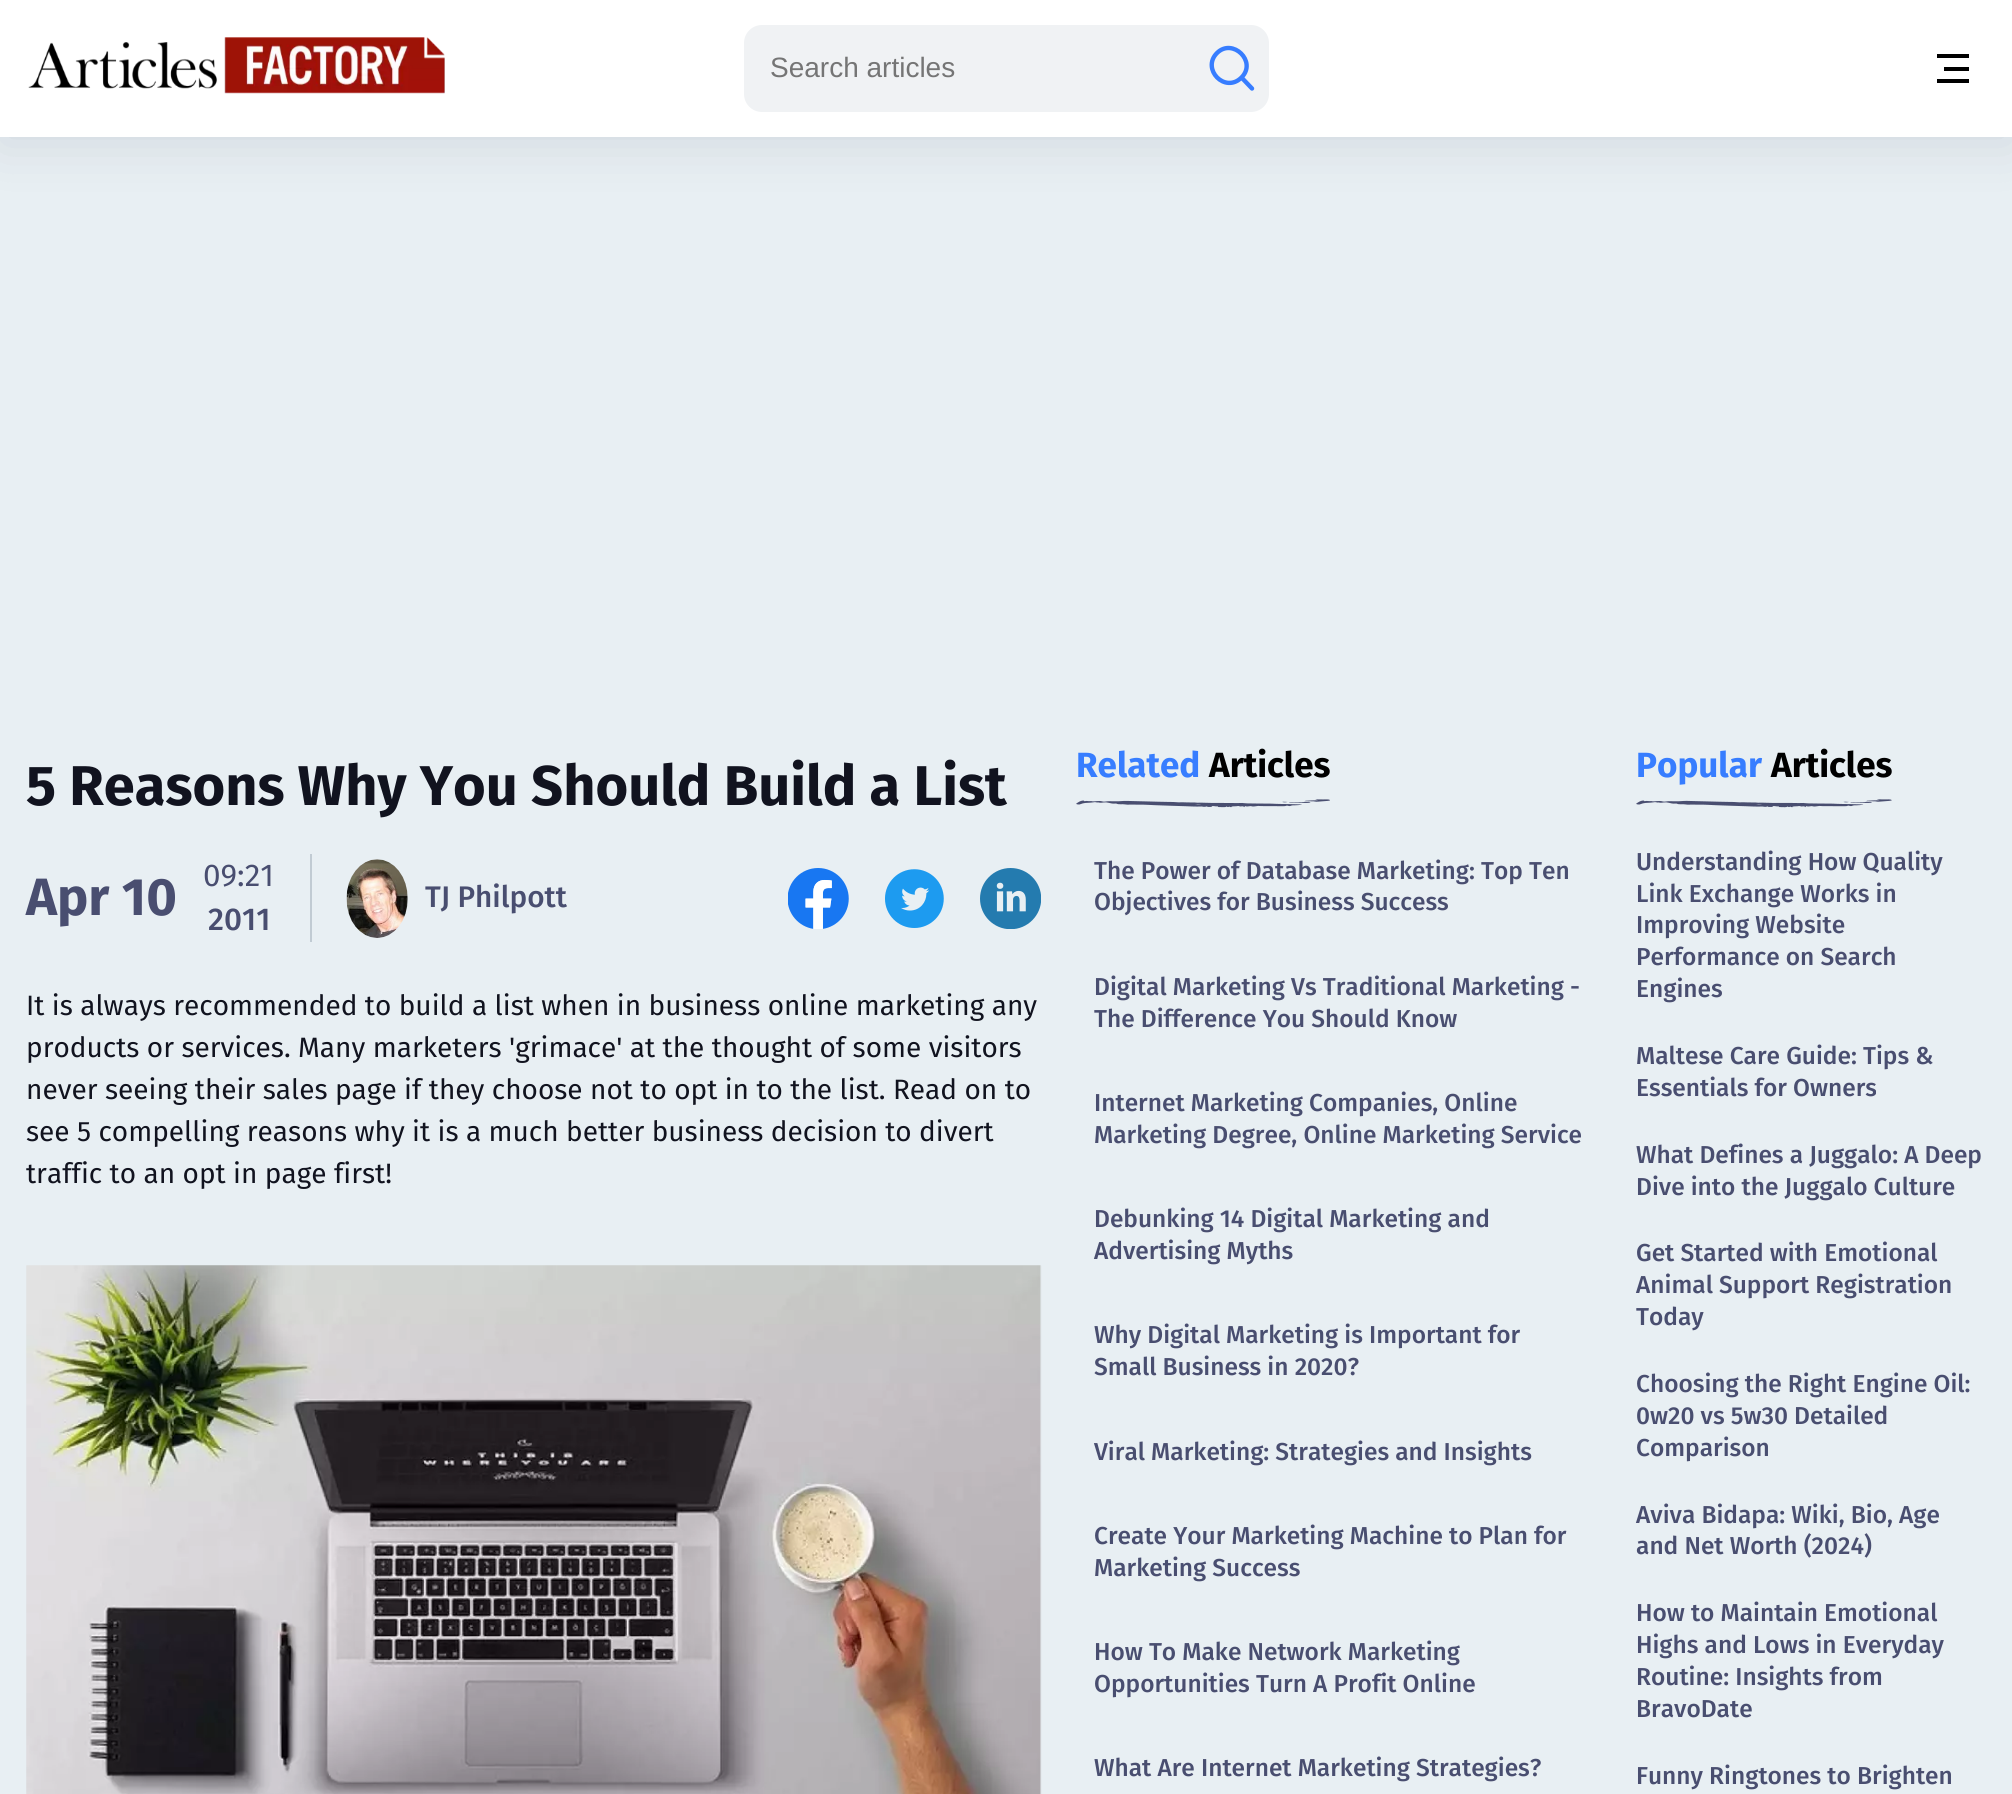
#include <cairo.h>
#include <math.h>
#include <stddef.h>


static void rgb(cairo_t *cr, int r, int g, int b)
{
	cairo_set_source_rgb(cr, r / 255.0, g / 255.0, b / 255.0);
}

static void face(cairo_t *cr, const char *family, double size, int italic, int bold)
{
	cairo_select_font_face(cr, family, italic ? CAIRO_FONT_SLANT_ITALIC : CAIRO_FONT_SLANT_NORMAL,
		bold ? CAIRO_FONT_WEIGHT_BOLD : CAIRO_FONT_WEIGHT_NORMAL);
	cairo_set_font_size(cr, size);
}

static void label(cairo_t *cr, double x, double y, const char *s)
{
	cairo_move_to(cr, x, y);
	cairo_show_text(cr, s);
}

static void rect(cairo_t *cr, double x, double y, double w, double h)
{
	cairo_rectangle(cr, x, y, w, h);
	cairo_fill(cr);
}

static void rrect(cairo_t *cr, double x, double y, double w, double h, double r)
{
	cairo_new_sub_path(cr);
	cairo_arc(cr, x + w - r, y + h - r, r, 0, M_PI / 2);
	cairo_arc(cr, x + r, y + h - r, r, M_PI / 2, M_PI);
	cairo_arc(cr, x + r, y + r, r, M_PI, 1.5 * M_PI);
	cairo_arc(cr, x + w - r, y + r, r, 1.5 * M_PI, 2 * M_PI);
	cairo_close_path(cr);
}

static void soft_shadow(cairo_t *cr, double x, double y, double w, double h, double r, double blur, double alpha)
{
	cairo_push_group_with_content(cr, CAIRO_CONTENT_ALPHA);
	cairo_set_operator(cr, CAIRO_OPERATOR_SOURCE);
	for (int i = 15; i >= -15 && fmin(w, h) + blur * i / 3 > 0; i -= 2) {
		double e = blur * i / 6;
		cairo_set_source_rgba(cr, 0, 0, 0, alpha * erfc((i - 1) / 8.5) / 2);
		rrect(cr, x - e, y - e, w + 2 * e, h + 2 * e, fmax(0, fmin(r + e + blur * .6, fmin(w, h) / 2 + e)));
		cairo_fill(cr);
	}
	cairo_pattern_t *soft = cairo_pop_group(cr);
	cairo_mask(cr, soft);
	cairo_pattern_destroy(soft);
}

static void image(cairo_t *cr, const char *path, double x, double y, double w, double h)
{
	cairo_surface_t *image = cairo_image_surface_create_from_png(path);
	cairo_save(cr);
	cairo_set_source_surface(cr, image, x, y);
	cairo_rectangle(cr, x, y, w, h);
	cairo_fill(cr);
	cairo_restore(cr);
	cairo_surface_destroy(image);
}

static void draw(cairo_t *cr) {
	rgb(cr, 232, 239, 243);
	cairo_paint(cr);
	rgb(cr, 3, 0, 37);
	soft_shadow(cr, 0, 7, 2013, 137, 0, 26, 0.1);
	rgb(cr, 255, 255, 255);
	rect(cr, 0, 0, 2012, 137);
	image(cr, "image0.png", 28, 37, 417, 57);
	rgb(cr, 240, 242, 244);
	rrect(cr, 744, 25, 525, 87, 18);
	cairo_fill(cr);
	face(cr, "Liberation Sans", 28, 0, 0);
	rgb(cr, 117, 117, 117);
	label(cr, 770, 77, "Search articles");
	cairo_new_path(cr);
	cairo_move_to(cr, 1252, 88.5);
	cairo_line_to(cr, 1241.5, 77.5);
	cairo_move_to(cr, 1241.5, 77.5);
	cairo_curve_to(cr, 1257.5, 61.5, 1232.5, 37.5, 1217, 53);
	cairo_curve_to(cr, 1201, 69, 1225, 94, 1241.5, 77.5);
	cairo_close_path(cr);
	rgb(cr, 55, 125, 255);
	cairo_set_line_width(cr, 4.4);
	cairo_set_line_cap(cr, CAIRO_LINE_CAP_ROUND);
	cairo_stroke(cr);
	rgb(cr, 0, 0, 0);
	rect(cr, 1937, 54, 32, 4);
	rect(cr, 1944, 67, 25, 4);
	rect(cr, 1937, 79, 32, 4);
	face(cr, "Fira Sans", 56, 0, 1);
	rgb(cr, 17, 19, 31);
	label(cr, 26, 805, "5 Reasons Why You Should Build a List");
	face(cr, "Fira Sans", 52.5, 0, 1);
	rgb(cr, 73, 78, 112);
	label(cr, 26, 915, "Apr 10");
	face(cr, "Fira Sans", 31.5, 0, 0);
	label(cr, 203, 886, "09:21");
	face(cr, "Fira Sans Medium", 31.5, 0, 0);
	label(cr, 208, 930, "2011");
	rgb(cr, 193, 203, 211);
	rect(cr, 310, 854, 2, 88);
	image(cr, "image1.png", 346, 859, 62, 79);
	face(cr, "Fira Sans Medium", 29.75, 0, 0);
	rgb(cr, 73, 78, 112);
	label(cr, 425, 907, "TJ Philpott");
	image(cr, "image2.png", 788, 868, 61, 61);
	image(cr, "image3.png", 885, 869, 59, 59);
	image(cr, "image4.png", 980, 868, 61, 61);
	face(cr, "Fira Sans", 28, 0, 0);
	rgb(cr, 17, 19, 31);
	label(cr, 26, 1015, "It is always recommended to build a list when in business online marketing any");
	label(cr, 26, 1057, "products or services. Many marketers 'grimace' at the thought of some visitors");
	label(cr, 26, 1099, "never seeing their sales page if they choose not to opt in to the list. Read on to");
	label(cr, 26, 1141, "see 5 compelling reasons why it is a much better business decision to divert");
	label(cr, 26, 1183, "traffic to an opt in page first!");
	image(cr, "image5.png", 26, 1265, 1016, 529);
	face(cr, "Fira Sans", 35, 0, 1);
	rgb(cr, 55, 125, 255);
	label(cr, 1076, 777, "Related");
	rgb(cr, 0, 0, 0);
	label(cr, 1209, 777, "Articles");
	image(cr, "image6.png", 1076, 799, 254, 9);
	face(cr, "Fira Sans Medium", 24.5, 0, 0);
	rgb(cr, 73, 78, 112);
	label(cr, 1094, 879, "The Power of Database Marketing: Top Ten");
	label(cr, 1094, 910, "Objectives for Business Success");
	label(cr, 1094, 995, "Digital Marketing Vs Traditional Marketing -");
	label(cr, 1094, 1027, "The Difference You Should Know");
	label(cr, 1094, 1111, "Internet Marketing Companies, Online");
	label(cr, 1094, 1143, "Marketing Degree, Online Marketing Service");
	label(cr, 1094, 1227, "Debunking 14 Digital Marketing and");
	label(cr, 1094, 1259, "Advertising Myths");
	label(cr, 1094, 1343, "Why Digital Marketing is Important for");
	label(cr, 1094, 1375, "Small Business in 2020?");
	label(cr, 1094, 1460, "Viral Marketing: Strategies and Insights");
	label(cr, 1094, 1544, "Create Your Marketing Machine to Plan for");
	label(cr, 1094, 1576, "Marketing Success");
	label(cr, 1094, 1660, "How To Make Network Marketing");
	label(cr, 1094, 1692, "Opportunities Turn A Profit Online");
	label(cr, 1094, 1776, "What Are Internet Marketing Strategies?");
	face(cr, "Fira Sans", 35, 0, 1);
	rgb(cr, 55, 125, 255);
	label(cr, 1636, 777, "Popular");
	rgb(cr, 0, 0, 0);
	label(cr, 1771, 777, "Articles");
	image(cr, "image7.png", 1636, 799, 256, 9);
	face(cr, "Fira Sans Medium", 24.5, 0, 0);
	rgb(cr, 73, 78, 112);
	label(cr, 1636, 870, "Understanding How Quality");
	label(cr, 1636, 902, "Link Exchange Works in");
	label(cr, 1636, 933, "Improving Website");
	label(cr, 1636, 965, "Performance on Search");
	label(cr, 1636, 997, "Engines");
	label(cr, 1636, 1064, "Maltese Care Guide: Tips &");
	label(cr, 1636, 1096, "Essentials for Owners");
	label(cr, 1636, 1163, "What Defines a Juggalo: A Deep");
	label(cr, 1636, 1195, "Dive into the Juggalo Culture");
	label(cr, 1636, 1261, "Get Started with Emotional");
	label(cr, 1636, 1293, "Animal Support Registration");
	label(cr, 1636, 1325, "Today");
	label(cr, 1636, 1392, "Choosing the Right Engine Oil:");
	label(cr, 1636, 1424, "0w20 vs 5w30 Detailed");
	label(cr, 1636, 1456, "Comparison");
	label(cr, 1636, 1523, "Aviva Bidapa: Wiki, Bio, Age");
	label(cr, 1636, 1554, "and Net Worth (2024)");
	label(cr, 1636, 1621, "How to Maintain Emotional");
	label(cr, 1636, 1653, "Highs and Lows in Everyday");
	label(cr, 1636, 1685, "Routine: Insights from");
	label(cr, 1636, 1717, "BravoDate");
	label(cr, 1636, 1784, "Funny Ringtones to Brighten");
}

int main(void) {
	cairo_surface_t *surface = cairo_image_surface_create(CAIRO_FORMAT_RGB24, 2012, 1794);
	cairo_t *cr = cairo_create(surface);
	cairo_font_options_t *options = cairo_font_options_create();
	cairo_font_options_set_hint_metrics(options, CAIRO_HINT_METRICS_OFF);
	cairo_font_options_set_hint_style(options, CAIRO_HINT_STYLE_NONE);
	cairo_set_font_options(cr, options);
	cairo_set_miter_limit(cr, 4);
	draw(cr);
	cairo_surface_write_to_png(surface, "render.png");
	cairo_font_options_destroy(options);
	cairo_destroy(cr);
	cairo_surface_destroy(surface);
	return 0;
}
